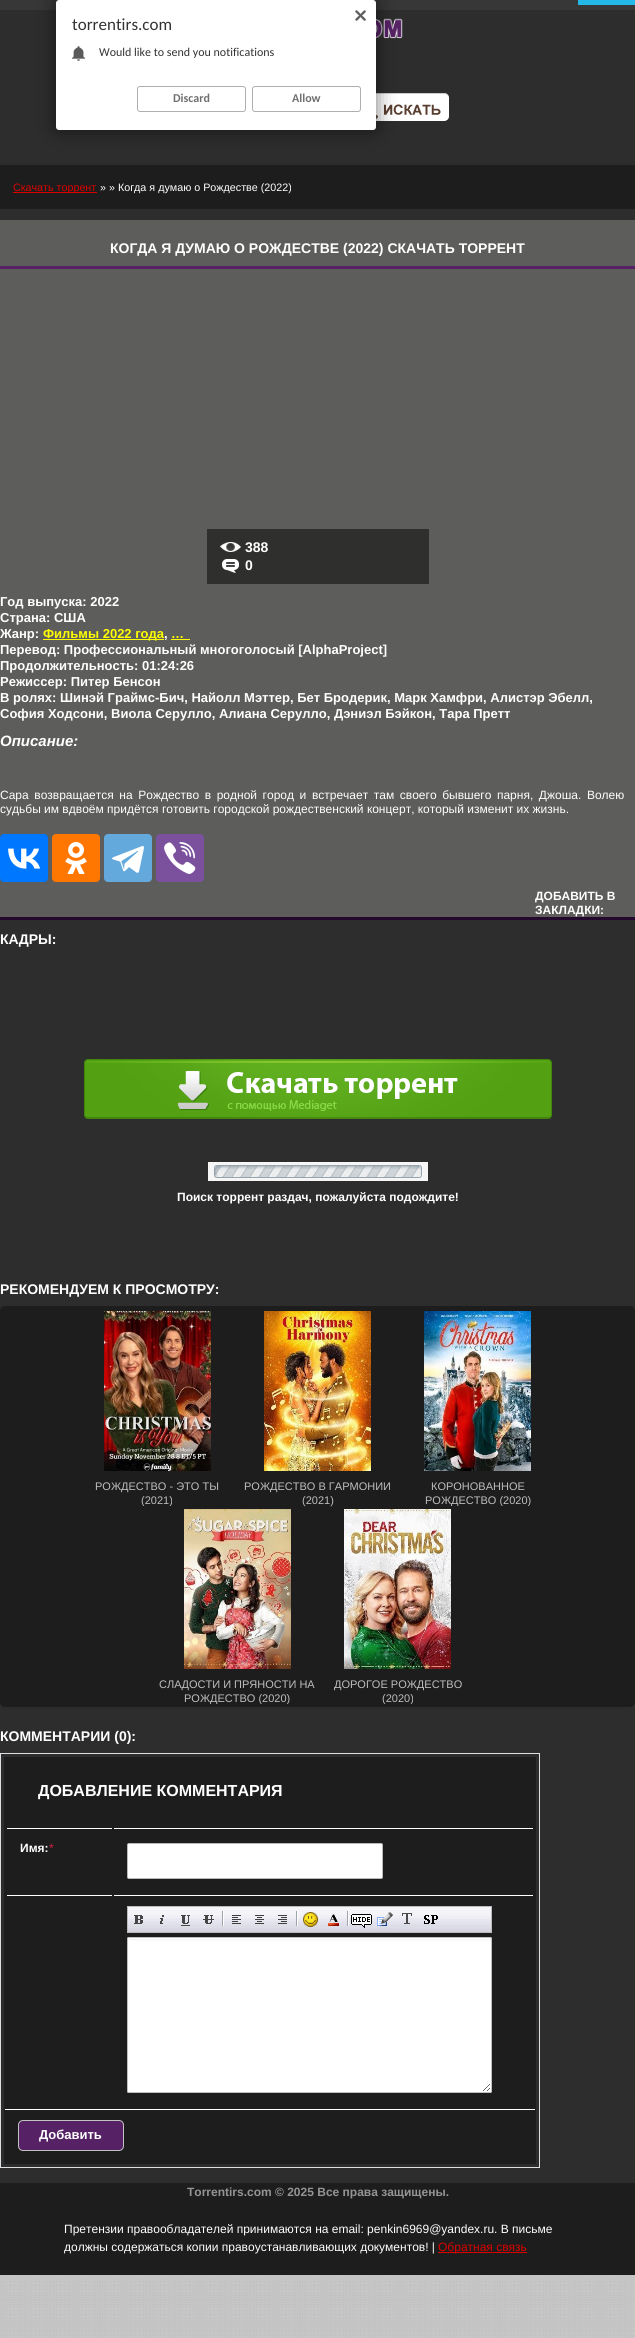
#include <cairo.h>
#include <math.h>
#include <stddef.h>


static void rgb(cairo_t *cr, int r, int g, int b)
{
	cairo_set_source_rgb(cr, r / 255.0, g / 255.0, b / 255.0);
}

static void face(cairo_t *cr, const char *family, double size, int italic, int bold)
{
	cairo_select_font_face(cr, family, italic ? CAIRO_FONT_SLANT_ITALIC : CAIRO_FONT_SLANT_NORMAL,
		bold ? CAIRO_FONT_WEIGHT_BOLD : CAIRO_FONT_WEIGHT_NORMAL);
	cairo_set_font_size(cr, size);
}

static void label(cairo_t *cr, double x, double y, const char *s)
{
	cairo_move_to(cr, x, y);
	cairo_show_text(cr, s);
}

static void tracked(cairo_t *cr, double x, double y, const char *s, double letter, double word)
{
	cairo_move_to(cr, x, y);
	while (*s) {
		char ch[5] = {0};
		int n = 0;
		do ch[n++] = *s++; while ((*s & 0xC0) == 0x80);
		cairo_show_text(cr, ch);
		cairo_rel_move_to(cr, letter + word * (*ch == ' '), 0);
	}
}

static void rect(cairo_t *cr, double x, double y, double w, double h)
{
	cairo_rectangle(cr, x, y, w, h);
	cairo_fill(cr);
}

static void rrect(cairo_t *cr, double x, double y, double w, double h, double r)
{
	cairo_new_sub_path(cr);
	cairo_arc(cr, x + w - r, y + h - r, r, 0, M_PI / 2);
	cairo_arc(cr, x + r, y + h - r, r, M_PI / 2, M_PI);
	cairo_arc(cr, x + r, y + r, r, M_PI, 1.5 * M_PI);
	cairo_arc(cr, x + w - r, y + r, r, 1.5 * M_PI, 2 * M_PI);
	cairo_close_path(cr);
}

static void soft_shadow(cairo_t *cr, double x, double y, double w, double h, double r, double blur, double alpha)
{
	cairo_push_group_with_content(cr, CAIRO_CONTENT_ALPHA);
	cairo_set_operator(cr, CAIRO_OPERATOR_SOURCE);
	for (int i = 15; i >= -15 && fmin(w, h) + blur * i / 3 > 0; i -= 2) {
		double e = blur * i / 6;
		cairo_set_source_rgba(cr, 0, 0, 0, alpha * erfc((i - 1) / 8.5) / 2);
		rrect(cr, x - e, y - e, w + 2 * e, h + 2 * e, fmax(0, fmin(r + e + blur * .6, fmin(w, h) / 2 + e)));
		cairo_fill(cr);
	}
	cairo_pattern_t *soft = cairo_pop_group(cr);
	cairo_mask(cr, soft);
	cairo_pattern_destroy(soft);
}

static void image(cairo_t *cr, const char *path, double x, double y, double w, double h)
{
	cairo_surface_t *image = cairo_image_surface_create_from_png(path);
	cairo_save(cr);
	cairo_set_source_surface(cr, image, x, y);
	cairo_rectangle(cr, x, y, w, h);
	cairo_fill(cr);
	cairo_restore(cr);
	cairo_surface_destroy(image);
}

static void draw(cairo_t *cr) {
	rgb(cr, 255, 255, 255);
	cairo_paint(cr);
	image(cr, "image0.png", 0, 2275, 635, 63);
	rgb(cr, 55, 55, 55);
	rect(cr, 0, 0, 635, 10);
	rgb(cr, 45, 45, 45);
	rect(cr, 0, 10, 635, 2173);
	image(cr, "image3.png", 376, 18, 27, 21);
	rgb(cr, 255, 255, 255);
	rrect(cr, 186, 93, 263, 28, 5);
	cairo_fill(cr);
	image(cr, "image4.png", 376, 93, 73, 28);
	cairo_set_source_rgba(cr, 0, 0, 0, 0.2);
	cairo_new_path(cr);
	cairo_move_to(cr, 191, 94);
	cairo_line_to(cr, 444, 94);
	cairo_curve_to(cr, 447, 94, 449, 96, 449, 99);
	cairo_curve_to(cr, 449, 96, 447, 93, 444, 93);
	cairo_line_to(cr, 191, 93);
	cairo_curve_to(cr, 188, 93, 186, 96, 186, 99);
	cairo_curve_to(cr, 186, 96, 188, 94, 191, 94);
	cairo_close_path(cr);
	cairo_fill(cr);
	image(cr, "image5.png", 376, 104, 65, 15);
	rgb(cr, 0, 0, 0);
	soft_shadow(cr, 56, 0, 320, 130, 3, 10, 0.54);
	rgb(cr, 255, 255, 255);
	rrect(cr, 56, 0, 320, 130, 3);
	cairo_fill(cr);
	image(cr, "image1.png", 355, 10, 11, 11);
	face(cr, "Carlito", 17, 0, 0);
	rgb(cr, 51, 51, 51);
	label(cr, 72, 30, "torrentirs.com");
	image(cr, "image2.png", 72, 46, 13, 15);
	face(cr, "Carlito", 12, 0, 0);
	label(cr, 99, 56, "Would like to send you notifications");
	rrect(cr, 137.5, 86.5, 108, 25, 2.5);
	rgb(cr, 175, 175, 175);
	cairo_set_line_width(cr, 1);
	cairo_stroke(cr);
	face(cr, "Carlito", 12, 0, 1);
	rgb(cr, 111, 111, 111);
	label(cr, 173, 102, "Discard");
	rrect(cr, 252.5, 86.5, 108, 25, 2.5);
	rgb(cr, 175, 175, 175);
	cairo_stroke(cr);
	rgb(cr, 111, 111, 111);
	label(cr, 292, 102, "Allow");
	rgb(cr, 36, 184, 233);
	rect(cr, 578, 0, 57, 5);
	rgb(cr, 30, 29, 29);
	rect(cr, 0, 165, 635, 44);
	rgb(cr, 220, 0, 0);
	rect(cr, 13, 192, 84, 1);
	face(cr, "Liberation Sans", 10.75, 0, 0);
	label(cr, 13, 191, "Скачать торрент");
	rgb(cr, 255, 255, 255);
	label(cr, 100, 191, "» » Когда я думаю о Рождестве (2022)");
	rgb(cr, 93, 93, 91);
	rect(cr, 0, 269, 635, 648);
	rgb(cr, 37, 8, 45);
	rect(cr, 0, 917, 635, 3);
	rgb(cr, 93, 93, 91);
	rect(cr, 0, 220, 635, 46);
	rgb(cr, 86, 34, 101);
	rect(cr, 0, 266, 635, 3);
	face(cr, "Liberation Sans", 14, 0, 1);
	rgb(cr, 255, 255, 255);
	label(cr, 110, 253, "КОГДА Я ДУМАЮ О РОЖДЕСТВЕ (2022) СКАЧАТЬ ТОРРЕНТ");
	rgb(cr, 47, 47, 46);
	rect(cr, 207, 529, 222, 55);
	image(cr, "image6.png", 220, 542, 21, 10);
	rgb(cr, 255, 255, 255);
	label(cr, 245, 552, "388");
	image(cr, "image7.png", 222, 559, 17, 14);
	label(cr, 245, 570, "0");
	face(cr, "Liberation Sans", 13, 0, 1);
	label(cr, 0, 606, "Год выпуска: 2022");
	label(cr, 0, 622, "Страна: США");
	label(cr, 0, 638, "Жанр:");
	rgb(cr, 255, 255, 0);
	rect(cr, 43, 639, 121, 1);
	label(cr, 43, 638, "Фильмы 2022 года");
	rgb(cr, 255, 255, 255);
	label(cr, 164, 638, ",");
	rgb(cr, 255, 255, 0);
	label(cr, 171, 638, "…");
	rect(cr, 171, 639, 19, 1);
	rgb(cr, 255, 255, 255);
	label(cr, 0, 654, "Перевод: Профессиональный многоголосый [AlphaProject]");
	label(cr, 0, 670, "Продолжительность: 01:24:26");
	label(cr, 0, 686, "Режиссер: Питер Бенсон");
	label(cr, 0, 702, "В ролях: Шинэй Граймс-Бич, Найолл Мэттер, Бет Бродерик, Марк Хамфри, Алистэр Эбелл,");
	label(cr, 0, 718, "София Ходсони, Виола Серулло, Алиана Серулло, Дэниэл Бэйкон, Тара Претт");
	face(cr, "Liberation Sans", 15, 1, 1);
	label(cr, 0, 746, "Описание:");
	face(cr, "Liberation Sans", 12, 0, 0);
	tracked(cr, 0, 799, "Сара возвращается на Рождество в родной город и встречает там своего бывшего парня, Джоша. Волею", 0, 2.25);
	label(cr, 0, 813, "судьбы им вдвоём придётся готовить городской рождественский концерт, который изменит их жизнь.");
	rgb(cr, 0, 119, 255);
	rrect(cr, 0, 834, 48, 48, 4);
	cairo_fill(cr);
	image(cr, "image8.png", 8, 848, 33, 21);
	rgb(cr, 255, 119, 0);
	rrect(cr, 52, 834, 48, 48, 4);
	cairo_fill(cr);
	image(cr, "image9.png", 65, 842, 22, 32);
	rgb(cr, 100, 169, 220);
	rrect(cr, 104, 834, 48, 48, 4);
	cairo_fill(cr);
	image(cr, "image10.png", 112, 846, 32, 27);
	rgb(cr, 123, 81, 157);
	rrect(cr, 156, 834, 48, 48, 4);
	cairo_fill(cr);
	image(cr, "image11.png", 164, 842, 32, 32);
	face(cr, "Liberation Sans", 12, 0, 1);
	rgb(cr, 255, 255, 255);
	label(cr, 535, 900, "ДОБАВИТЬ В");
	label(cr, 535, 914, "ЗАКЛАДКИ:");
	face(cr, "Liberation Sans", 14, 0, 1);
	label(cr, 0, 944, "КАДРЫ:");
	image(cr, "image12.png", 84, 1059, 468, 60);
	image(cr, "image13.png", 208, 1162, 220, 19);
	face(cr, "Liberation Sans", 12, 0, 1);
	label(cr, 177, 1201, "Поиск торрент раздач, пожалуйста подождите!");
	face(cr, "Liberation Sans", 14, 0, 1);
	label(cr, 0, 1294, "РЕКОМЕНДУЕМ К ПРОСМОТРУ:");
	rgb(cr, 30, 29, 29);
	rrect(cr, 0, 1306, 635, 401, 5);
	cairo_fill(cr);
	image(cr, "image14.png", 104, 1311, 107, 160);
	face(cr, "Liberation Sans", 11, 0, 0);
	rgb(cr, 190, 190, 190);
	label(cr, 95, 1490, "РОЖДЕСТВО - ЭТО ТЫ");
	cairo_save(cr);
	cairo_rectangle(cr, 79, 1479, 157, 27);
	cairo_clip(cr);
	label(cr, 141, 1504, "(2021)");
	cairo_restore(cr);
	image(cr, "image15.png", 264, 1311, 107, 160);
	label(cr, 244, 1490, "РОЖДЕСТВО В ГАРМОНИИ");
	label(cr, 302, 1504, "(2021)");
	image(cr, "image16.png", 424, 1311, 107, 160);
	label(cr, 431, 1490, "КОРОНОВАННОЕ");
	cairo_save(cr);
	cairo_rectangle(cr, 399, 1479, 157, 27);
	cairo_clip(cr);
	label(cr, 425, 1504, "РОЖДЕСТВО (2020)");
	cairo_restore(cr);
	image(cr, "image17.png", 184, 1509, 107, 160);
	label(cr, 159, 1688, "СЛАДОСТИ И ПРЯНОСТИ НА");
	cairo_save(cr);
	cairo_rectangle(cr, 159, 1677, 157, 27);
	cairo_clip(cr);
	label(cr, 184, 1702, "РОЖДЕСТВО (2020)");
	cairo_restore(cr);
	image(cr, "image18.png", 344, 1509, 107, 160);
	label(cr, 334, 1688, "ДОРОГОЕ РОЖДЕСТВО");
	cairo_save(cr);
	cairo_rectangle(cr, 319, 1677, 157, 27);
	cairo_clip(cr);
	label(cr, 382, 1702, "(2020)");
	cairo_restore(cr);
	face(cr, "Liberation Sans", 14, 0, 1);
	rgb(cr, 255, 255, 255);
	label(cr, 0, 1741, "КОММЕНТАРИИ (0):");
	cairo_rectangle(cr, 0.5, 1753.5, 539, 414);
	rgb(cr, 220, 224, 226);
	cairo_stroke(cr);
	rgb(cr, 30, 29, 29);
	rect(cr, 4, 1757, 532, 407);
	face(cr, "Liberation Sans", 16, 0, 1);
	rgb(cr, 255, 255, 255);
	label(cr, 38, 1796, "ДОБАВЛЕНИЕ КОММЕНТАРИЯ");
	rect(cr, 7, 1828, 105, 1);
	face(cr, "Liberation Sans", 12, 0, 1);
	label(cr, 20, 1852, "Имя:");
	face(cr, "Liberation Sans", 12, 0, 0);
	rgb(cr, 213, 30, 68);
	label(cr, 49, 1852, "*");
	rgb(cr, 255, 255, 255);
	rect(cr, 114, 1828, 419, 1);
	rrect(cr, 127.5, 1843.5, 255, 35, 1.5);
	cairo_fill_preserve(cr);
	rgb(cr, 185, 185, 185);
	cairo_stroke(cr);
	rgb(cr, 255, 255, 255);
	rect(cr, 7, 1895, 105, 1);
	rect(cr, 114, 1895, 419, 1);
	image(cr, "image19.png", 128, 1907, 363, 25);
	cairo_rectangle(cr, 127.5, 1906.5, 364, 26);
	rgb(cr, 187, 187, 187);
	cairo_stroke(cr);
	image(cr, "image20.png", 129, 1915, 21, 14);
	image(cr, "image21.png", 151, 1915, 22, 14);
	image(cr, "image22.png", 174, 1915, 22, 14);
	image(cr, "image23.png", 197, 1915, 22, 14);
	image(cr, "image24.png", 220, 1911, 4, 18);
	image(cr, "image25.png", 226, 1915, 21, 14);
	image(cr, "image26.png", 248, 1915, 22, 14);
	image(cr, "image27.png", 272, 1915, 21, 14);
	image(cr, "image24.png", 294, 1911, 4, 18);
	image(cr, "image28.png", 299, 1912, 22, 15);
	image(cr, "image29.png", 322, 1914, 22, 12);
	image(cr, "image24.png", 345, 1911, 4, 18);
	image(cr, "image30.png", 350, 1914, 22, 14);
	image(cr, "image31.png", 373, 1912, 22, 17);
	image(cr, "image32.png", 396, 1913, 23, 12);
	image(cr, "image33.png", 420, 1915, 21, 10);
	rgb(cr, 255, 255, 255);
	rrect(cr, 127, 1937, 365, 156, 2);
	cairo_fill(cr);
	image(cr, "image34.png", 127, 1938, 365, 153);
	cairo_new_path(cr);
	cairo_move_to(cr, 130, 1939);
	cairo_line_to(cr, 491, 1939);
	cairo_curve_to(cr, 491, 1938, 491, 1938, 490, 1938);
	cairo_line_to(cr, 129, 1938);
	cairo_curve_to(cr, 128, 1938, 128, 1938, 128, 1939);
	cairo_line_to(cr, 128, 2091);
	cairo_curve_to(cr, 128, 2092, 128, 2092, 129, 2092);
	cairo_line_to(cr, 129, 1940);
	cairo_curve_to(cr, 129, 1939, 129, 1939, 130, 1939);
	cairo_close_path(cr);
	cairo_fill(cr);
	rrect(cr, 127.5, 1937.5, 364, 155, 1.5);
	rgb(cr, 188, 192, 194);
	cairo_stroke(cr);
	rgb(cr, 255, 255, 255);
	rect(cr, 5, 2109, 530, 1);
	rgb(cr, 86, 34, 101);
	rrect(cr, 18.5, 2120.5, 105, 30, 4.5);
	cairo_fill_preserve(cr);
	rgb(cr, 194, 194, 194);
	cairo_stroke(cr);
	face(cr, "Liberation Sans", 13, 0, 1);
	rgb(cr, 255, 255, 255);
	label(cr, 39, 2139, "Добавить");
	rgb(cr, 30, 29, 29);
	rect(cr, 0, 2183, 635, 92);
	face(cr, "Liberation Sans", 12, 0, 1);
	rgb(cr, 148, 148, 148);
	label(cr, 187, 2196, "Torrentirs.com © 2025 Все права защищены.");
	face(cr, "Liberation Sans", 12, 0, 0);
	rgb(cr, 255, 255, 255);
	label(cr, 64, 2233, "Претензии правообладателей принимаются на email: penkin6969@yandex.ru. В письме");
	label(cr, 64, 2251, "должны содержаться копии правоустанавливающих документов! |");
	rgb(cr, 220, 0, 0);
	rect(cr, 438, 2252, 89, 1);
	label(cr, 438, 2251, "Обратная связь");
}

int main(void) {
	cairo_surface_t *surface = cairo_image_surface_create(CAIRO_FORMAT_RGB24, 635, 2338);
	cairo_t *cr = cairo_create(surface);
	cairo_font_options_t *options = cairo_font_options_create();
	cairo_font_options_set_hint_metrics(options, CAIRO_HINT_METRICS_OFF);
	cairo_font_options_set_hint_style(options, CAIRO_HINT_STYLE_NONE);
	cairo_set_font_options(cr, options);
	cairo_set_miter_limit(cr, 4);
	draw(cr);
	cairo_surface_write_to_png(surface, "render.png");
	cairo_font_options_destroy(options);
	cairo_destroy(cr);
	cairo_surface_destroy(surface);
	return 0;
}
